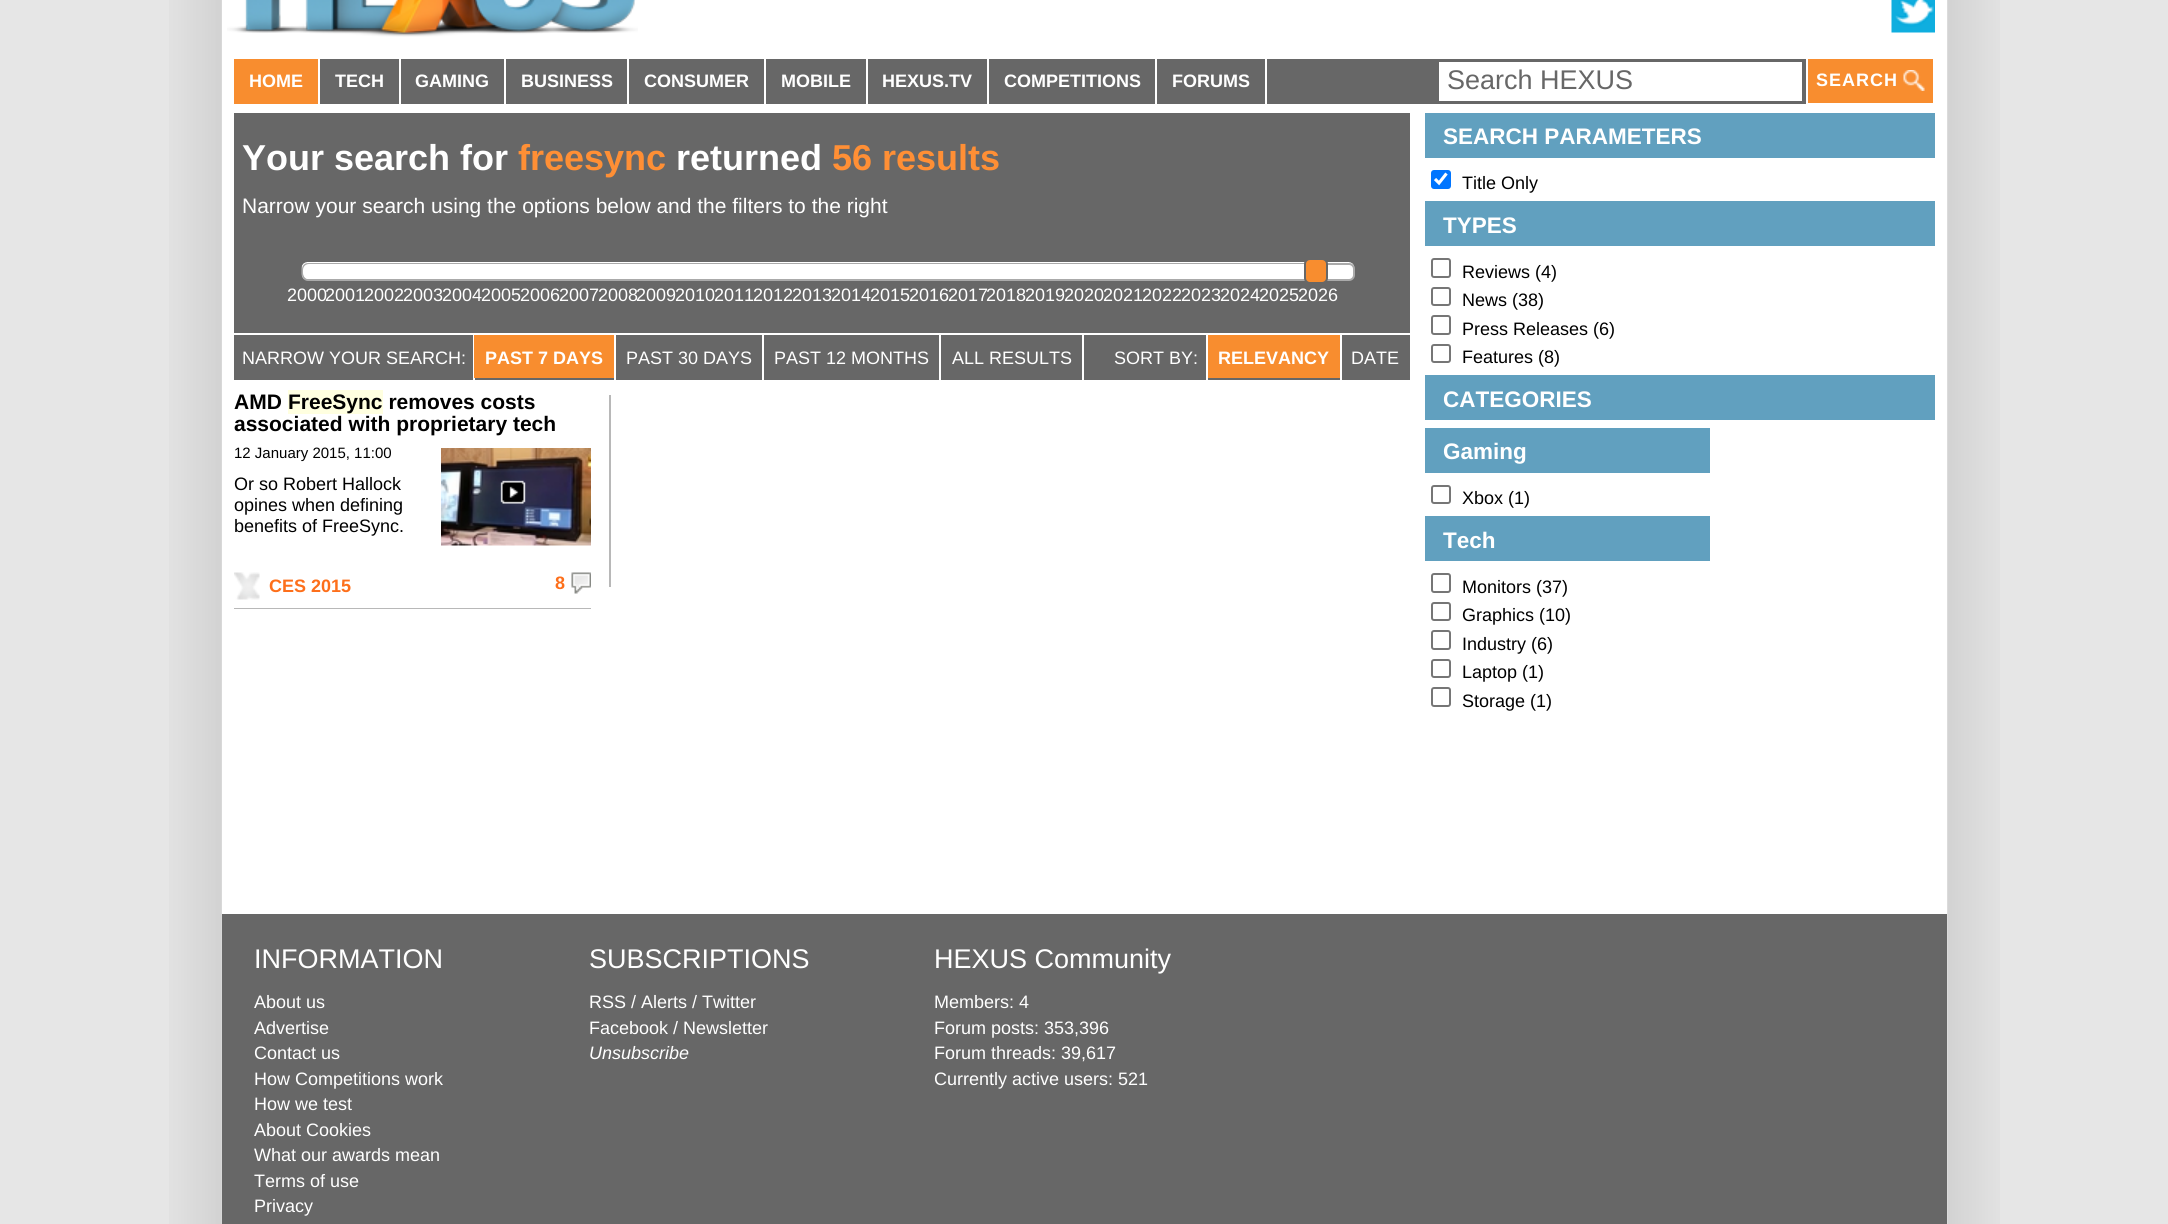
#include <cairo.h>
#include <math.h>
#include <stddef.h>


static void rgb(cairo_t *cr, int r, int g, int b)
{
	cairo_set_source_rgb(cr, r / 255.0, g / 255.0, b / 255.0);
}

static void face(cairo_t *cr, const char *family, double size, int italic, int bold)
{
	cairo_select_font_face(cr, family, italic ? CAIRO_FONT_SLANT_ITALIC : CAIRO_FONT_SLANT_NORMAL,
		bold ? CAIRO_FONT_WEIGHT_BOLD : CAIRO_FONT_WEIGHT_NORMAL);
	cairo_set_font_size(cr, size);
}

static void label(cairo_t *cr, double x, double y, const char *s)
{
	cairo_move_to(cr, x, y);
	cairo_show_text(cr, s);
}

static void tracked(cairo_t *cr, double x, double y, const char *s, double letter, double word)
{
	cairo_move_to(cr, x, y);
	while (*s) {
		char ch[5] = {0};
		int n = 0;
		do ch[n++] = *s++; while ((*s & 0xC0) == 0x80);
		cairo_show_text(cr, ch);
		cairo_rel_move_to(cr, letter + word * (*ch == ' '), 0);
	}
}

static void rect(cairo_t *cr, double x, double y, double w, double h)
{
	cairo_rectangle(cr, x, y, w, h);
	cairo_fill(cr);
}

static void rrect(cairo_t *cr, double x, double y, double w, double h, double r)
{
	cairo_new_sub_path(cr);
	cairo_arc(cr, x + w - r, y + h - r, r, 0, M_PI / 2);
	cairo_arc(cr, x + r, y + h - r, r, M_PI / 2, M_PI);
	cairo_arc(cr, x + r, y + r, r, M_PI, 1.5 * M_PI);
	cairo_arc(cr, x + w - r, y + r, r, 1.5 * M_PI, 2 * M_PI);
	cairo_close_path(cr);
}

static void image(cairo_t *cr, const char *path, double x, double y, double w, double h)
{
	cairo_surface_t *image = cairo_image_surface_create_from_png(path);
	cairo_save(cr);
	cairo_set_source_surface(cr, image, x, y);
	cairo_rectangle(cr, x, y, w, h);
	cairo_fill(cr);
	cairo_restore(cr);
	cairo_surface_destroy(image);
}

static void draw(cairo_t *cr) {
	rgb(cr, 230, 230, 230);
	cairo_paint(cr);
	image(cr, "image0.png", 169, 0, 1831, 1224);
	rgb(cr, 255, 255, 255);
	rect(cr, 222, 0, 1725, 914);
	image(cr, "image1.png", 227, 0, 411, 37);
	image(cr, "image2.png", 1891, 0, 44, 33);
	rgb(cr, 103, 103, 103);
	rect(cr, 320, 59, 1486, 45);
	rgb(cr, 248, 141, 47);
	rect(cr, 234, 59, 84, 45);
	face(cr, "Liberation Sans", 18, 0, 1);
	rgb(cr, 255, 255, 255);
	label(cr, 249, 87, "HOME");
	label(cr, 335, 87, "TECH");
	rect(cr, 399, 59, 2, 45);
	label(cr, 415, 87, "GAMING");
	rect(cr, 504, 59, 2, 45);
	label(cr, 521, 87, "BUSINESS");
	rect(cr, 627, 59, 2, 45);
	label(cr, 644, 87, "CONSUMER");
	rect(cr, 764, 59, 2, 45);
	label(cr, 781, 87, "MOBILE");
	rect(cr, 866, 59, 2, 45);
	label(cr, 882, 87, "HEXUS.TV");
	rect(cr, 987, 59, 2, 45);
	label(cr, 1004, 87, "COMPETITIONS");
	rect(cr, 1155, 59, 2, 45);
	label(cr, 1172, 87, "FORUMS");
	rect(cr, 1265, 59, 2, 45);
	rect(cr, 1439, 62, 363, 39);
	face(cr, "Liberation Sans", 27, 0, 0);
	rgb(cr, 103, 103, 103);
	label(cr, 1447, 89, "Search HEXUS");
	rgb(cr, 248, 141, 47);
	rect(cr, 1808, 59, 125, 44);
	face(cr, "Liberation Sans", 18, 0, 1);
	rgb(cr, 255, 255, 255);
	tracked(cr, 1816, 86, "SEARCH", 1, 0);
	image(cr, "image3.png", 1903, 70, 22, 21);
	rgb(cr, 103, 103, 103);
	rect(cr, 234, 113, 1176, 267);
	face(cr, "Liberation Sans", 36, 0, 1);
	rgb(cr, 255, 255, 255);
	label(cr, 242, 170, "Your search for");
	rgb(cr, 255, 143, 53);
	label(cr, 518, 170, "freesync");
	rgb(cr, 255, 255, 255);
	label(cr, 676, 170, "returned");
	rgb(cr, 255, 143, 53);
	label(cr, 832, 170, "56 results");
	face(cr, "Liberation Sans", 21, 0, 0);
	rgb(cr, 255, 255, 255);
	label(cr, 242, 213, "Narrow your search using the options below and the filters to the right");
	image(cr, "image4.png", 301, 262, 1054, 17);
	rrect(cr, 303, 264, 1051, 16, 5);
	rgb(cr, 170, 170, 170);
	cairo_stroke(cr);
	rgb(cr, 255, 255, 255);
	rrect(cr, 303, 264, 1011, 15, 6);
	cairo_fill(cr);
	rgb(cr, 248, 141, 47);
	rrect(cr, 1305, 259, 22, 24, 5);
	cairo_fill_preserve(cr);
	rgb(cr, 103, 103, 103);
	cairo_stroke(cr);
	face(cr, "Liberation Sans", 18, 0, 0);
	rgb(cr, 255, 255, 255);
	label(cr, 287, 301, "2000");
	label(cr, 325, 301, "2001");
	label(cr, 364, 301, "2002");
	label(cr, 403, 301, "2003");
	label(cr, 442, 301, "2004");
	label(cr, 481, 301, "2005");
	label(cr, 520, 301, "2006");
	label(cr, 559, 301, "2007");
	label(cr, 598, 301, "2008");
	label(cr, 636, 301, "2009");
	label(cr, 675, 301, "2010");
	label(cr, 714, 301, "2011");
	label(cr, 753, 301, "2012");
	label(cr, 792, 301, "2013");
	label(cr, 831, 301, "2014");
	label(cr, 870, 301, "2015");
	label(cr, 909, 301, "2016");
	label(cr, 948, 301, "2017");
	label(cr, 986, 301, "2018");
	label(cr, 1025, 301, "2019");
	label(cr, 1064, 301, "2020");
	label(cr, 1103, 301, "2021");
	label(cr, 1142, 301, "2022");
	label(cr, 1181, 301, "2023");
	label(cr, 1220, 301, "2024");
	label(cr, 1259, 301, "2025");
	label(cr, 1298, 301, "2026");
	rect(cr, 234, 333, 1176, 2);
	label(cr, 242, 364, "NARROW YOUR SEARCH:");
	rect(cr, 473, 335, 2, 45);
	rgb(cr, 248, 141, 47);
	rect(cr, 474, 335, 140, 43);
	face(cr, "Liberation Sans", 18, 0, 1);
	rgb(cr, 255, 255, 255);
	label(cr, 485, 364, "PAST 7 DAYS");
	rect(cr, 614, 335, 2, 45);
	face(cr, "Liberation Sans", 18, 0, 0);
	label(cr, 626, 364, "PAST 30 DAYS");
	rect(cr, 762, 335, 2, 45);
	label(cr, 774, 364, "PAST 12 MONTHS");
	rect(cr, 939, 335, 2, 45);
	label(cr, 952, 364, "ALL RESULTS");
	rect(cr, 1082, 335, 2, 45);
	label(cr, 1114, 364, "SORT BY:");
	rect(cr, 1206, 335, 2, 45);
	rgb(cr, 248, 141, 47);
	rect(cr, 1208, 335, 132, 43);
	face(cr, "Liberation Sans", 18, 0, 1);
	rgb(cr, 255, 255, 255);
	label(cr, 1218, 364, "RELEVANCY");
	rect(cr, 1340, 335, 2, 45);
	face(cr, "Liberation Sans", 18, 0, 0);
	label(cr, 1351, 364, "DATE");
	face(cr, "Liberation Sans", 21, 0, 1);
	rgb(cr, 0, 0, 0);
	label(cr, 234, 409, "AMD");
	rgb(cr, 255, 255, 224);
	rect(cr, 288, 390, 95, 24);
	rgb(cr, 0, 0, 0);
	label(cr, 288, 409, "FreeSync removes costs");
	label(cr, 234, 431, "associated with proprietary tech");
	face(cr, "Liberation Sans", 15, 0, 0);
	label(cr, 234, 458, "12 January 2015, 11:00");
	image(cr, "image5.png", 441, 448, 150, 98);
	image(cr, "image6.png", 500, 480, 26, 24);
	face(cr, "Liberation Sans", 18, 0, 0);
	label(cr, 234, 490, "Or so Robert Hallock");
	label(cr, 234, 511, "opines when defining");
	label(cr, 234, 532, "benefits of FreeSync.");
	image(cr, "image7.png", 234, 572, 26, 28);
	face(cr, "Liberation Sans", 18, 0, 1);
	rgb(cr, 253, 111, 27);
	label(cr, 269, 592, "CES 2015");
	image(cr, "image8.png", 571, 572, 20, 22);
	label(cr, 555, 589, "8");
	rgb(cr, 184, 184, 184);
	rect(cr, 609, 395, 2, 192);
	rect(cr, 234, 608, 357, 1);
	rgb(cr, 97, 160, 191);
	rect(cr, 1425, 113, 510, 45);
	face(cr, "Liberation Sans", 22.5, 0, 1);
	rgb(cr, 255, 255, 255);
	label(cr, 1443, 144, "SEARCH PARAMETERS");
	rgb(cr, 0, 117, 255);
	rrect(cr, 1431, 170, 20, 19, 3);
	cairo_fill(cr);
	cairo_new_path(cr);
	cairo_move_to(cr, 1435, 179);
	cairo_line_to(cr, 1439, 183);
	cairo_line_to(cr, 1446.5, 173.5);
	rgb(cr, 255, 255, 255);
	cairo_set_line_width(cr, 3.1);
	cairo_stroke(cr);
	face(cr, "Liberation Sans", 18, 0, 0);
	rgb(cr, 0, 0, 0);
	label(cr, 1462, 189, "Title Only");
	rgb(cr, 97, 160, 191);
	rect(cr, 1425, 201, 510, 45);
	face(cr, "Liberation Sans", 22.5, 0, 1);
	rgb(cr, 255, 255, 255);
	label(cr, 1443, 233, "TYPES");
	rrect(cr, 1432, 259, 18, 18, 2);
	rgb(cr, 118, 118, 118);
	cairo_set_line_width(cr, 2);
	cairo_stroke(cr);
	face(cr, "Liberation Sans", 18, 0, 0);
	rgb(cr, 0, 0, 0);
	label(cr, 1462, 278, "Reviews (4)");
	rrect(cr, 1432, 288, 18, 17, 2);
	rgb(cr, 118, 118, 118);
	cairo_stroke(cr);
	rgb(cr, 0, 0, 0);
	label(cr, 1462, 306, "News (38)");
	rrect(cr, 1432, 316, 18, 18, 2);
	rgb(cr, 118, 118, 118);
	cairo_stroke(cr);
	rgb(cr, 0, 0, 0);
	label(cr, 1462, 335, "Press Releases (6)");
	rrect(cr, 1432, 345, 18, 17, 2);
	rgb(cr, 118, 118, 118);
	cairo_stroke(cr);
	rgb(cr, 0, 0, 0);
	label(cr, 1462, 363, "Features (8)");
	rgb(cr, 97, 160, 191);
	rect(cr, 1425, 375, 510, 45);
	face(cr, "Liberation Sans", 22.5, 0, 1);
	rgb(cr, 255, 255, 255);
	label(cr, 1443, 407, "CATEGORIES");
	rgb(cr, 97, 160, 191);
	rect(cr, 1425, 428, 285, 45);
	rgb(cr, 255, 255, 255);
	label(cr, 1443, 459, "Gaming");
	rrect(cr, 1432, 486, 18, 17, 2);
	rgb(cr, 118, 118, 118);
	cairo_stroke(cr);
	face(cr, "Liberation Sans", 18, 0, 0);
	rgb(cr, 0, 0, 0);
	label(cr, 1462, 504, "Xbox (1)");
	rgb(cr, 97, 160, 191);
	rect(cr, 1425, 516, 285, 45);
	face(cr, "Liberation Sans", 22.5, 0, 1);
	rgb(cr, 255, 255, 255);
	label(cr, 1443, 548, "Tech");
	rrect(cr, 1432, 574, 18, 18, 2);
	rgb(cr, 118, 118, 118);
	cairo_stroke(cr);
	face(cr, "Liberation Sans", 18, 0, 0);
	rgb(cr, 0, 0, 0);
	label(cr, 1462, 593, "Monitors (37)");
	rrect(cr, 1432, 603, 18, 17, 2);
	rgb(cr, 118, 118, 118);
	cairo_stroke(cr);
	rgb(cr, 0, 0, 0);
	label(cr, 1462, 621, "Graphics (10)");
	rrect(cr, 1432, 631, 18, 18, 2);
	rgb(cr, 118, 118, 118);
	cairo_stroke(cr);
	rgb(cr, 0, 0, 0);
	label(cr, 1462, 650, "Industry (6)");
	rrect(cr, 1432, 660, 18, 17, 2);
	rgb(cr, 118, 118, 118);
	cairo_stroke(cr);
	rgb(cr, 0, 0, 0);
	label(cr, 1462, 678, "Laptop (1)");
	rrect(cr, 1432, 688, 18, 18, 2);
	rgb(cr, 118, 118, 118);
	cairo_stroke(cr);
	rgb(cr, 0, 0, 0);
	label(cr, 1462, 707, "Storage (1)");
	rgb(cr, 103, 103, 103);
	rect(cr, 222, 914, 1725, 310);
	face(cr, "Liberation Sans", 27, 0, 0);
	rgb(cr, 255, 255, 255);
	label(cr, 254, 968, "INFORMATION");
	face(cr, "Liberation Sans", 18, 0, 0);
	label(cr, 254, 1008, "About us");
	label(cr, 254, 1034, "Advertise");
	label(cr, 254, 1059, "Contact us");
	label(cr, 254, 1085, "How Competitions work");
	label(cr, 254, 1110, "How we test");
	label(cr, 254, 1136, "About Cookies");
	label(cr, 254, 1161, "What our awards mean");
	label(cr, 254, 1187, "Terms of use");
	label(cr, 254, 1212, "Privacy");
	face(cr, "Liberation Sans", 27, 0, 0);
	label(cr, 589, 968, "SUBSCRIPTIONS");
	face(cr, "Liberation Sans", 18, 0, 0);
	label(cr, 589, 1008, "RSS / Alerts / Twitter");
	label(cr, 589, 1034, "Facebook / Newsletter");
	face(cr, "Liberation Sans", 18, 1, 0);
	label(cr, 589, 1059, "Unsubscribe");
	face(cr, "Liberation Sans", 27, 0, 0);
	label(cr, 934, 968, "HEXUS Community");
	face(cr, "Liberation Sans", 18, 0, 0);
	label(cr, 934, 1008, "Members: 4");
	label(cr, 934, 1034, "Forum posts: 353,396");
	label(cr, 934, 1059, "Forum threads: 39,617");
	label(cr, 934, 1085, "Currently active users: 521");
}

int main(void) {
	cairo_surface_t *surface = cairo_image_surface_create(CAIRO_FORMAT_RGB24, 2168, 1224);
	cairo_t *cr = cairo_create(surface);
	cairo_font_options_t *options = cairo_font_options_create();
	cairo_font_options_set_hint_metrics(options, CAIRO_HINT_METRICS_OFF);
	cairo_font_options_set_hint_style(options, CAIRO_HINT_STYLE_NONE);
	cairo_set_font_options(cr, options);
	cairo_set_miter_limit(cr, 4);
	draw(cr);
	cairo_surface_write_to_png(surface, "render.png");
	cairo_font_options_destroy(options);
	cairo_destroy(cr);
	cairo_surface_destroy(surface);
	return 0;
}
